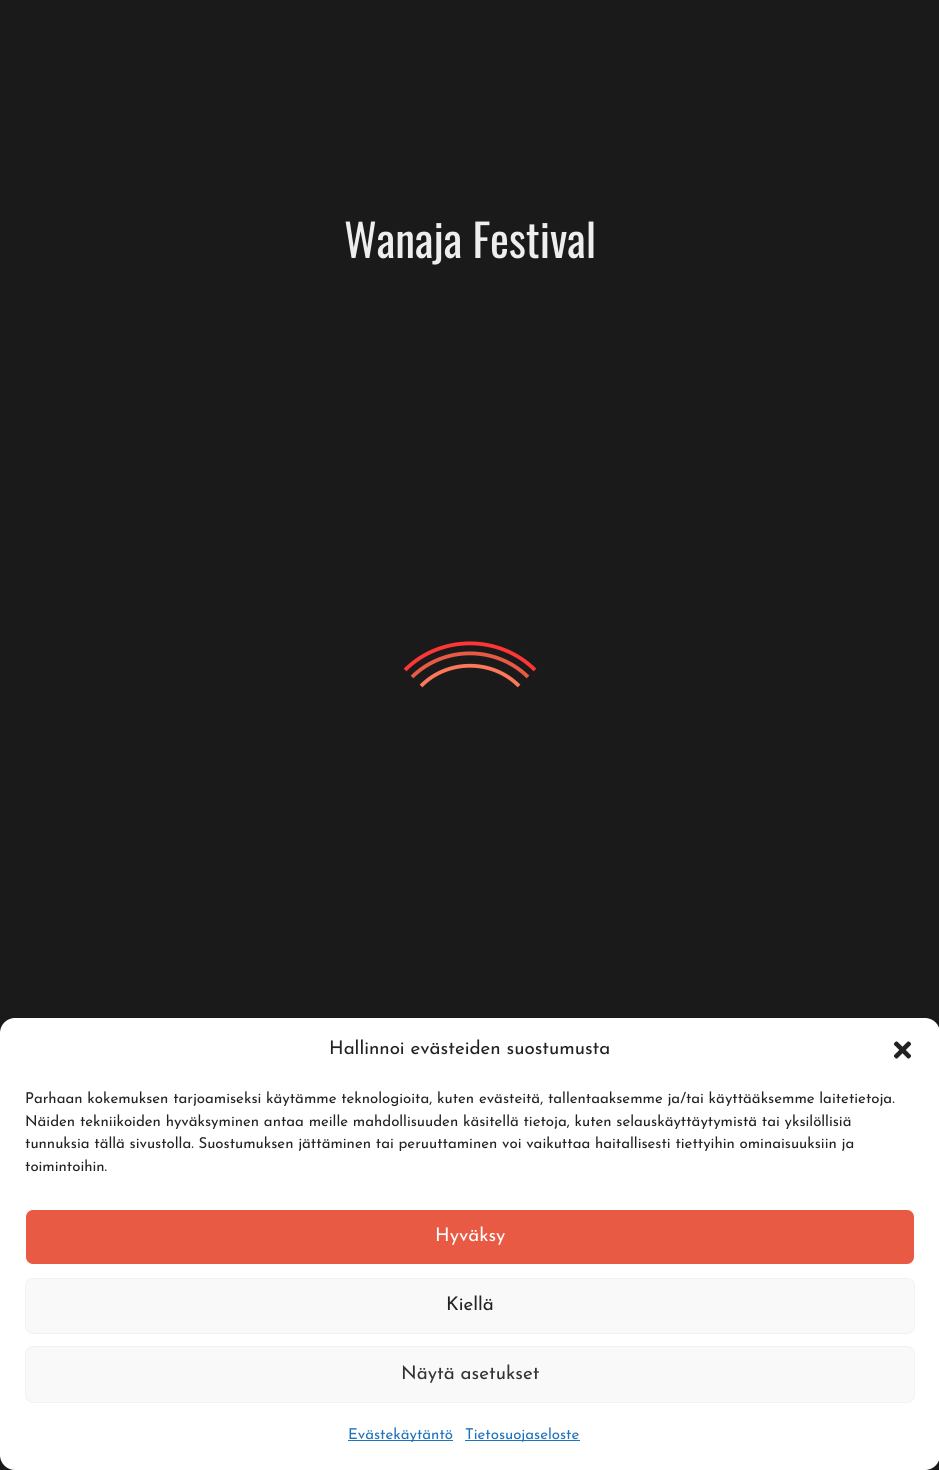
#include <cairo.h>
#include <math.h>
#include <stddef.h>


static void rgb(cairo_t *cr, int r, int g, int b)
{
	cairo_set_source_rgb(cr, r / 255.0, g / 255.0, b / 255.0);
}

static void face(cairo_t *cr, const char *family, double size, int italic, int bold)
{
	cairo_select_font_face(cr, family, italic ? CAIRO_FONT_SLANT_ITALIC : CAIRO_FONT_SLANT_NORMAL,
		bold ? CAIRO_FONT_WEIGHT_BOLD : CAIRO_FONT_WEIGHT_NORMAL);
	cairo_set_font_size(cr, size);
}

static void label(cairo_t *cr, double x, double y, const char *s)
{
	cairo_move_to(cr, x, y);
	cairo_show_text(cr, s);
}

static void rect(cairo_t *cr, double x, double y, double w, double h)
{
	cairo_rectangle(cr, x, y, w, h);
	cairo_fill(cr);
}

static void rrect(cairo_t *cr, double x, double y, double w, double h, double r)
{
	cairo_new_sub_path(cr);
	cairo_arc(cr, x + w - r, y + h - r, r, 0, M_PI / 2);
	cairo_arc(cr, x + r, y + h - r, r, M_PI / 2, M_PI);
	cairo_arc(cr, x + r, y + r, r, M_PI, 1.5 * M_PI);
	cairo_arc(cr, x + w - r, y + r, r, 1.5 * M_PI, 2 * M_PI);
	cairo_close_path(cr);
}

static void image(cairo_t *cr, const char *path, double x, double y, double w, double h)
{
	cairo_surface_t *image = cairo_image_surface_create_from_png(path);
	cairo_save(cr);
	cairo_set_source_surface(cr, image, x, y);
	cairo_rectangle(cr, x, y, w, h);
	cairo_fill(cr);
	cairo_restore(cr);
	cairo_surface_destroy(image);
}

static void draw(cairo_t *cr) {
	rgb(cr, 27, 26, 26);
	cairo_paint(cr);
	face(cr, "Oswald", 45, 0, 0);
	rgb(cr, 238, 238, 238);
	label(cr, 344, 258, "Wanaja Festival");
	cairo_new_path(cr);
	cairo_move_to(cr, 405, 670);
	cairo_curve_to(cr, 440.5, 634.5, 499.5, 634.5, 535, 670);
	rgb(cr, 255, 54, 54);
	cairo_set_line_width(cr, 3.8);
	cairo_stroke(cr);
	cairo_new_path(cr);
	cairo_move_to(cr, 412, 677);
	cairo_curve_to(cr, 444, 645.5, 496, 645.5, 528, 677);
	rgb(cr, 233, 90, 68);
	cairo_stroke(cr);
	cairo_new_path(cr);
	cairo_move_to(cr, 421, 686);
	cairo_curve_to(cr, 447.5, 659, 492.5, 659, 519, 686);
	rgb(cr, 253, 120, 90);
	cairo_stroke(cr);
	rgb(cr, 255, 255, 255);
	rrect(cr, 0, 1018, 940, 452, 15);
	cairo_fill(cr);
	face(cr, "Josefin Sans", 18.75, 0, 0);
	rgb(cr, 34, 34, 34);
	label(cr, 329, 1054, "Hallinnoi evästeiden suostumusta");
	image(cr, "image0.png", 893, 1041, 19, 18);
	face(cr, "Josefin Sans", 15, 0, 0);
	label(cr, 25, 1103, "Parhaan kokemuksen tarjoamiseksi käytämme teknologioita, kuten evästeitä, tallentaaksemme ja/tai käyttääksemme laitetietoja.");
	label(cr, 25, 1126, "Näiden tekniikoiden hyväksyminen antaa meille mahdollisuuden käsitellä tietoja, kuten selauskäyttäytymistä tai yksilöllisiä");
	label(cr, 25, 1148, "tunnuksia tällä sivustolla. Suostumuksen jättäminen tai peruuttaminen voi vaikuttaa haitallisesti tiettyihin ominaisuuksiin ja");
	label(cr, 25, 1171, "toimintoihin.");
	rgb(cr, 233, 90, 68);
	rrect(cr, 25.5, 1209.5, 889, 55, 7.5);
	cairo_fill_preserve(cr);
	rgb(cr, 255, 255, 255);
	cairo_set_line_width(cr, 1);
	cairo_stroke(cr);
	face(cr, "Josefin Sans", 18.75, 0, 0);
	label(cr, 435, 1241, "Hyväksy");
	rgb(cr, 249, 249, 249);
	rrect(cr, 25.5, 1278.5, 889, 55, 7.5);
	cairo_fill_preserve(cr);
	rgb(cr, 242, 242, 242);
	cairo_stroke(cr);
	rgb(cr, 34, 34, 34);
	label(cr, 446, 1310, "Kiellä");
	rgb(cr, 249, 249, 249);
	rrect(cr, 25.5, 1346.5, 889, 56, 7.5);
	cairo_fill_preserve(cr);
	rgb(cr, 242, 242, 242);
	cairo_stroke(cr);
	rgb(cr, 51, 51, 51);
	label(cr, 401, 1379, "Näytä asetukset");
	rgb(cr, 30, 115, 190);
	rect(cr, 348, 1440, 105, 1);
	face(cr, "Josefin Sans", 15, 0, 0);
	label(cr, 348, 1439, "Evästekäytäntö");
	rect(cr, 465, 1440, 115, 1);
	label(cr, 465, 1439, "Tietosuojaseloste");
}

int main(void) {
	cairo_surface_t *surface = cairo_image_surface_create(CAIRO_FORMAT_RGB24, 939, 1470);
	cairo_t *cr = cairo_create(surface);
	cairo_font_options_t *options = cairo_font_options_create();
	cairo_font_options_set_hint_metrics(options, CAIRO_HINT_METRICS_OFF);
	cairo_font_options_set_hint_style(options, CAIRO_HINT_STYLE_NONE);
	cairo_set_font_options(cr, options);
	cairo_set_miter_limit(cr, 4);
	draw(cr);
	cairo_surface_write_to_png(surface, "render.png");
	cairo_font_options_destroy(options);
	cairo_destroy(cr);
	cairo_surface_destroy(surface);
	return 0;
}
